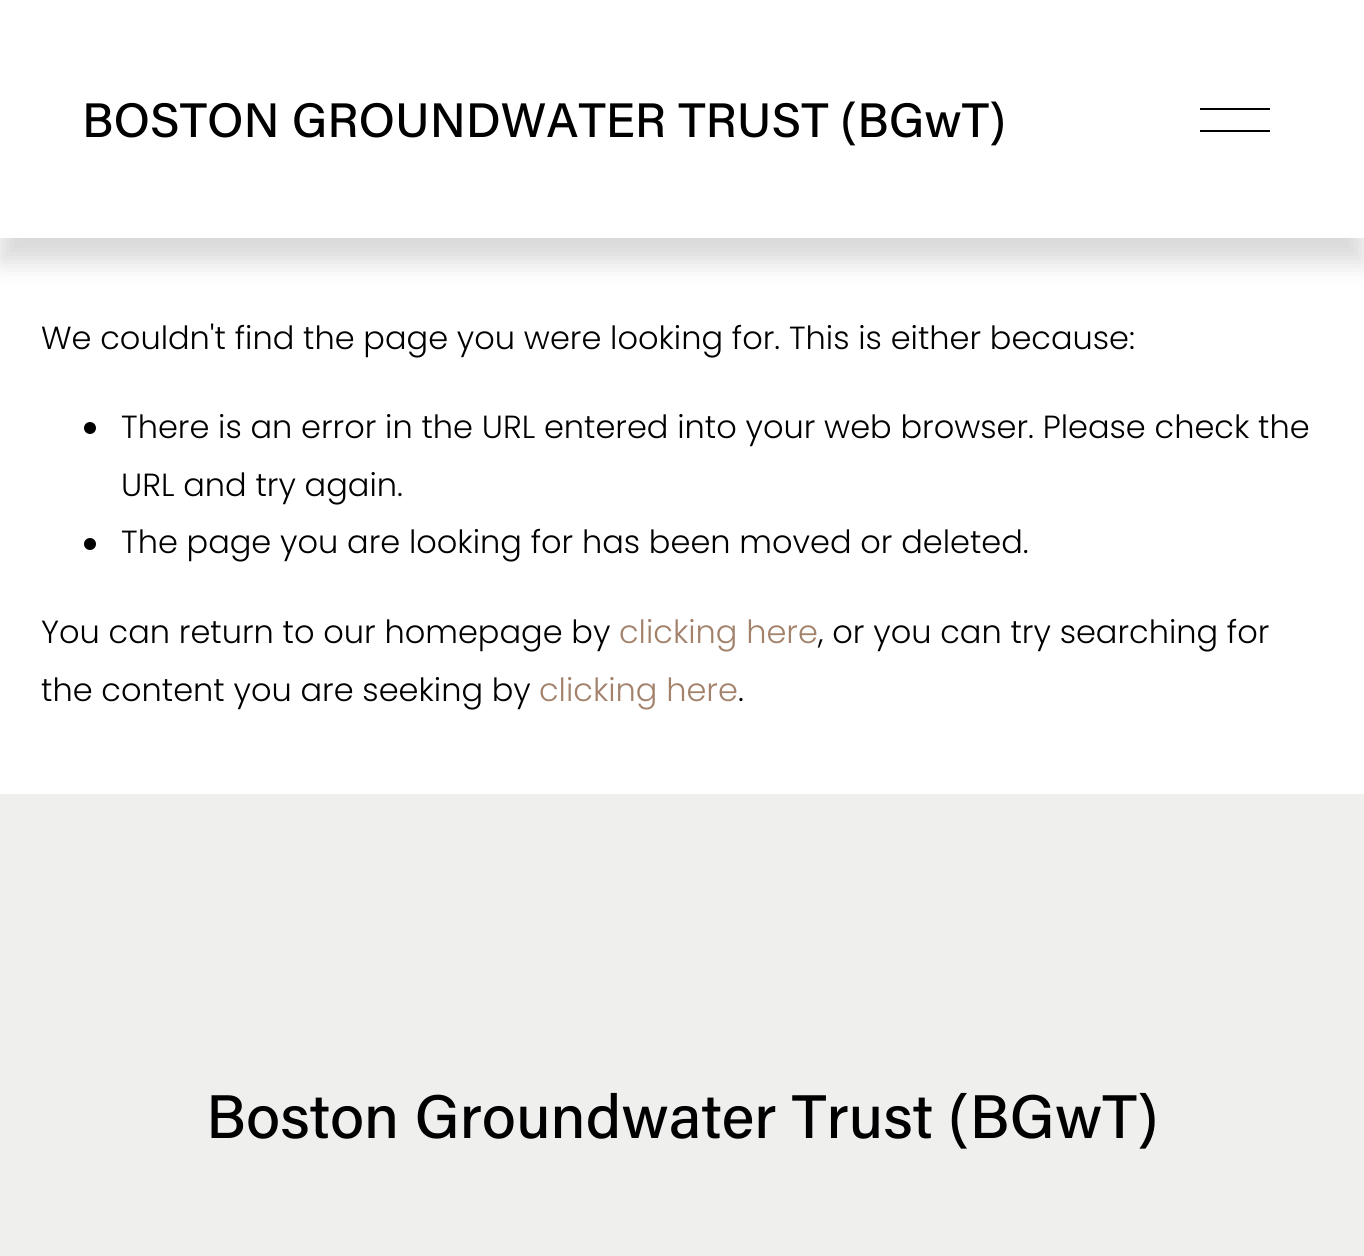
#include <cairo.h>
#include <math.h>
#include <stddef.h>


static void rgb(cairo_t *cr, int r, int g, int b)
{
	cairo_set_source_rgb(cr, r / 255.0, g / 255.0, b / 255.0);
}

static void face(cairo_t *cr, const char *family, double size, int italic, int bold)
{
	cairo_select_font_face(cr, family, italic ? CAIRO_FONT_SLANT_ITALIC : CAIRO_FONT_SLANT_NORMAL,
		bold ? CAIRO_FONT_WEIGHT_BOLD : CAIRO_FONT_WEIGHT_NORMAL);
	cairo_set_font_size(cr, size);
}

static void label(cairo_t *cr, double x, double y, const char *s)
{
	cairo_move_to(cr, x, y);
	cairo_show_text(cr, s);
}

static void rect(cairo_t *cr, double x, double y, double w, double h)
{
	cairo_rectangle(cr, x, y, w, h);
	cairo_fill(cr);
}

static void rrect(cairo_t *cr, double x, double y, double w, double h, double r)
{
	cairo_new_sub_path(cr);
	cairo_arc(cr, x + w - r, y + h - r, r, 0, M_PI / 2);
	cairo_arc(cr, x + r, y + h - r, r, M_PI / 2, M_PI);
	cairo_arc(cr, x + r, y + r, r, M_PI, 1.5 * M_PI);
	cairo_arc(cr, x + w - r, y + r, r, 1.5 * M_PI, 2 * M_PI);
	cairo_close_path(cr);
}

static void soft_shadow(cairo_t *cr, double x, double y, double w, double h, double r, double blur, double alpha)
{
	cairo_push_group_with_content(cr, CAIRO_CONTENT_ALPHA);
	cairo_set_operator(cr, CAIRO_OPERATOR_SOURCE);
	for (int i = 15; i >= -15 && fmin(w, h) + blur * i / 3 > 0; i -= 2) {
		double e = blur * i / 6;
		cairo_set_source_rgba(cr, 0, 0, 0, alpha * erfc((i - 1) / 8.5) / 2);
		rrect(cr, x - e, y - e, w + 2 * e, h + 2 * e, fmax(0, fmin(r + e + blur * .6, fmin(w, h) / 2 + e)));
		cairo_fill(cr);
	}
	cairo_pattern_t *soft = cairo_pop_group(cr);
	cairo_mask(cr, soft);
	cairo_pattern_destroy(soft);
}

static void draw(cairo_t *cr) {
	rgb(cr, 255, 255, 255);
	cairo_paint(cr);
	cairo_save(cr);
	cairo_rectangle(cr, 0, 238, 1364, 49);
	cairo_clip(cr);
	rgb(cr, 217, 217, 217);
	soft_shadow(cr, 0, 24, 1364, 238, 0, 12, 1);
	cairo_restore(cr);
	face(cr, "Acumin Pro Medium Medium", 48.4, 0, 0);
	rgb(cr, 0, 0, 0);
	label(cr, 82, 137, "BOSTON GROUNDWATER TRUST (BGwT)");
	rect(cr, 1200, 108, 70, 2);
	rect(cr, 1200, 130, 70, 2);
	face(cr, "Poppins Light", 32, 0, 0);
	label(cr, 41, 349, "We couldn't find the page you were looking for. This is either because:");
	cairo_new_path(cr);
	cairo_arc(cr, 90, 428, 6, 0, 2 * M_PI);
	cairo_fill(cr);
	label(cr, 121, 438, "There is an error in the URL entered into your web browser. Please check the");
	label(cr, 121, 496, "URL and try again.");
	cairo_new_path(cr);
	cairo_arc(cr, 90, 544, 6, 0, 2 * M_PI);
	cairo_fill(cr);
	label(cr, 121, 553, "The page you are looking for has been moved or deleted.");
	label(cr, 41, 643, "You can return to our homepage by");
	rgb(cr, 163, 130, 108);
	label(cr, 619, 643, "clicking here");
	rgb(cr, 0, 0, 0);
	label(cr, 818, 643, ", or you can try searching for");
	label(cr, 41, 701, "the content you are seeking by");
	rgb(cr, 163, 130, 108);
	label(cr, 539, 701, "clicking here");
	rgb(cr, 0, 0, 0);
	label(cr, 738, 701, ".");
	rgb(cr, 239, 239, 238);
	rect(cr, 0, 794, 1364, 462);
	face(cr, "Acumin Pro Medium Medium", 61.5, 0, 0);
	rgb(cr, 0, 0, 0);
	label(cr, 206, 1138, "Boston Groundwater Trust (BGwT)");
}

int main(void) {
	cairo_surface_t *surface = cairo_image_surface_create(CAIRO_FORMAT_RGB24, 1364, 1256);
	cairo_t *cr = cairo_create(surface);
	cairo_font_options_t *options = cairo_font_options_create();
	cairo_font_options_set_hint_metrics(options, CAIRO_HINT_METRICS_OFF);
	cairo_font_options_set_hint_style(options, CAIRO_HINT_STYLE_NONE);
	cairo_set_font_options(cr, options);
	cairo_set_miter_limit(cr, 4);
	draw(cr);
	cairo_surface_write_to_png(surface, "render.png");
	cairo_font_options_destroy(options);
	cairo_destroy(cr);
	cairo_surface_destroy(surface);
	return 0;
}
